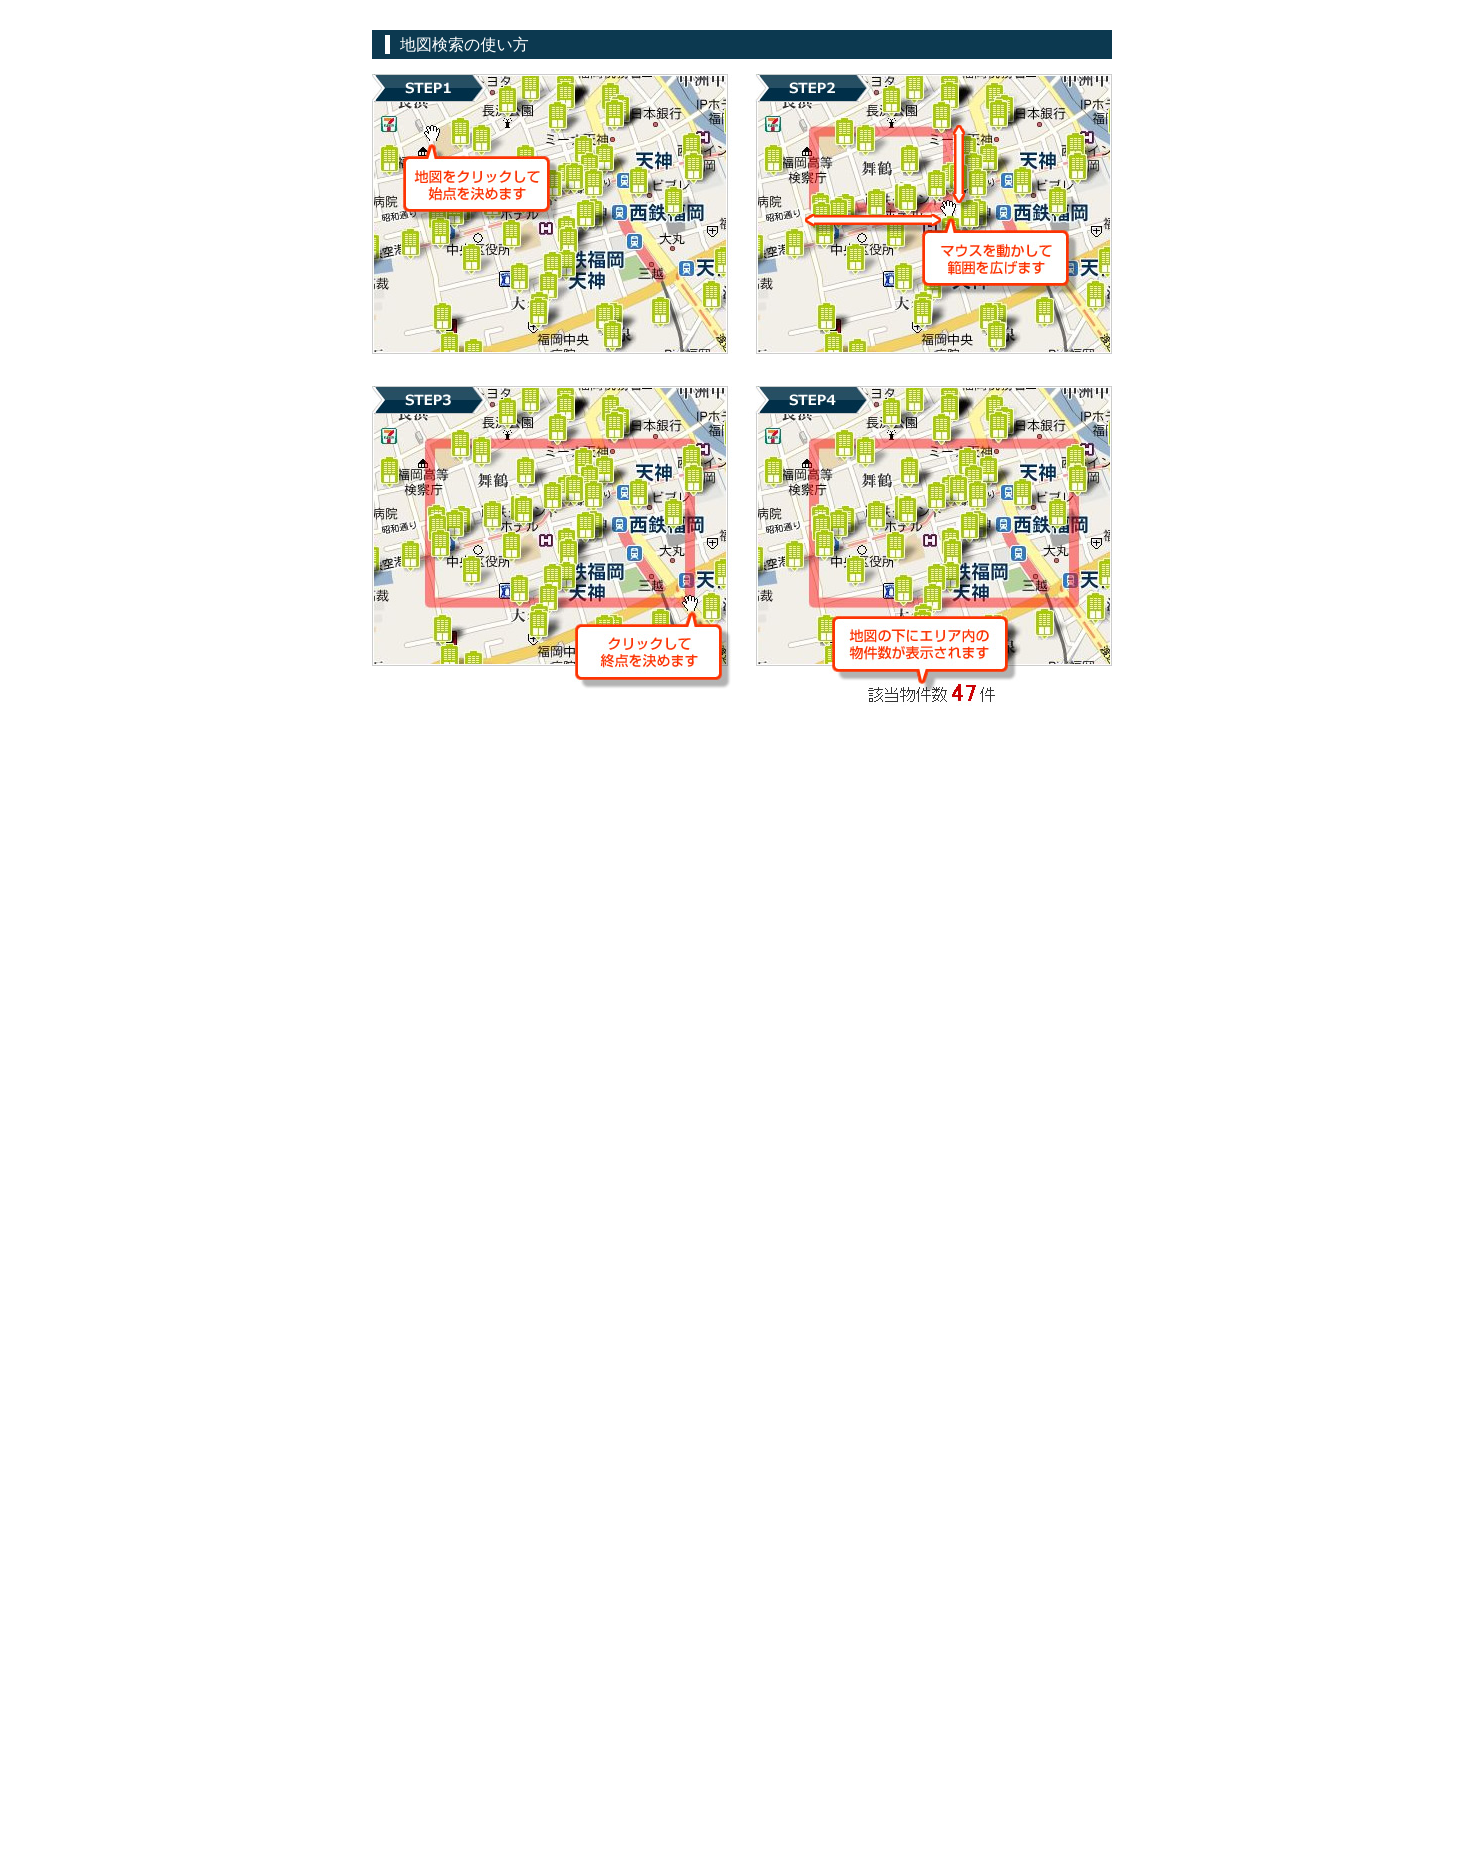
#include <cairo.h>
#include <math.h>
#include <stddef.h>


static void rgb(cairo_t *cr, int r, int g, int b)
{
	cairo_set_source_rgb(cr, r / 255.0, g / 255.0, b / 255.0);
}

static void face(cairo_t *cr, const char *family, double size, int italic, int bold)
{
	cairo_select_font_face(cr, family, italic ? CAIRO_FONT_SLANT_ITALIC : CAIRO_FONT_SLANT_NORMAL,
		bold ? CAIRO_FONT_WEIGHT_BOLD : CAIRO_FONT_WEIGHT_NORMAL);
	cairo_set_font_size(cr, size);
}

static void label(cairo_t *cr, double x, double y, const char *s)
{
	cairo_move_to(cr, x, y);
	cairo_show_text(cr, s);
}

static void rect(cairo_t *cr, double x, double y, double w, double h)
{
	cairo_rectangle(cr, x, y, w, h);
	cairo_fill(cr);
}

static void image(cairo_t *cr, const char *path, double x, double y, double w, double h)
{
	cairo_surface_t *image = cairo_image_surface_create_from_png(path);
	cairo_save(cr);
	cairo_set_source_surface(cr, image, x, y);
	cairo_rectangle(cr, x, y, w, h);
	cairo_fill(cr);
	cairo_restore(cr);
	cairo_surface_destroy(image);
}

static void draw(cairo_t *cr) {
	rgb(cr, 255, 255, 255);
	cairo_paint(cr);
	rgb(cr, 12, 57, 80);
	rect(cr, 372, 30, 740, 29);
	rgb(cr, 255, 255, 255);
	rect(cr, 385, 35, 5, 19);
	face(cr, "WenQuanYi Zen Hei Medium", 16, 0, 0);
	label(cr, 400, 50, "地図検索の使い方");
	image(cr, "image0.png", 372, 74, 740, 632);
}

int main(void) {
	cairo_surface_t *surface = cairo_image_surface_create(CAIRO_FORMAT_RGB24, 1484, 1870);
	cairo_t *cr = cairo_create(surface);
	cairo_font_options_t *options = cairo_font_options_create();
	cairo_font_options_set_hint_metrics(options, CAIRO_HINT_METRICS_OFF);
	cairo_font_options_set_hint_style(options, CAIRO_HINT_STYLE_NONE);
	cairo_set_font_options(cr, options);
	cairo_set_miter_limit(cr, 4);
	draw(cr);
	cairo_surface_write_to_png(surface, "render.png");
	cairo_font_options_destroy(options);
	cairo_destroy(cr);
	cairo_surface_destroy(surface);
	return 0;
}
